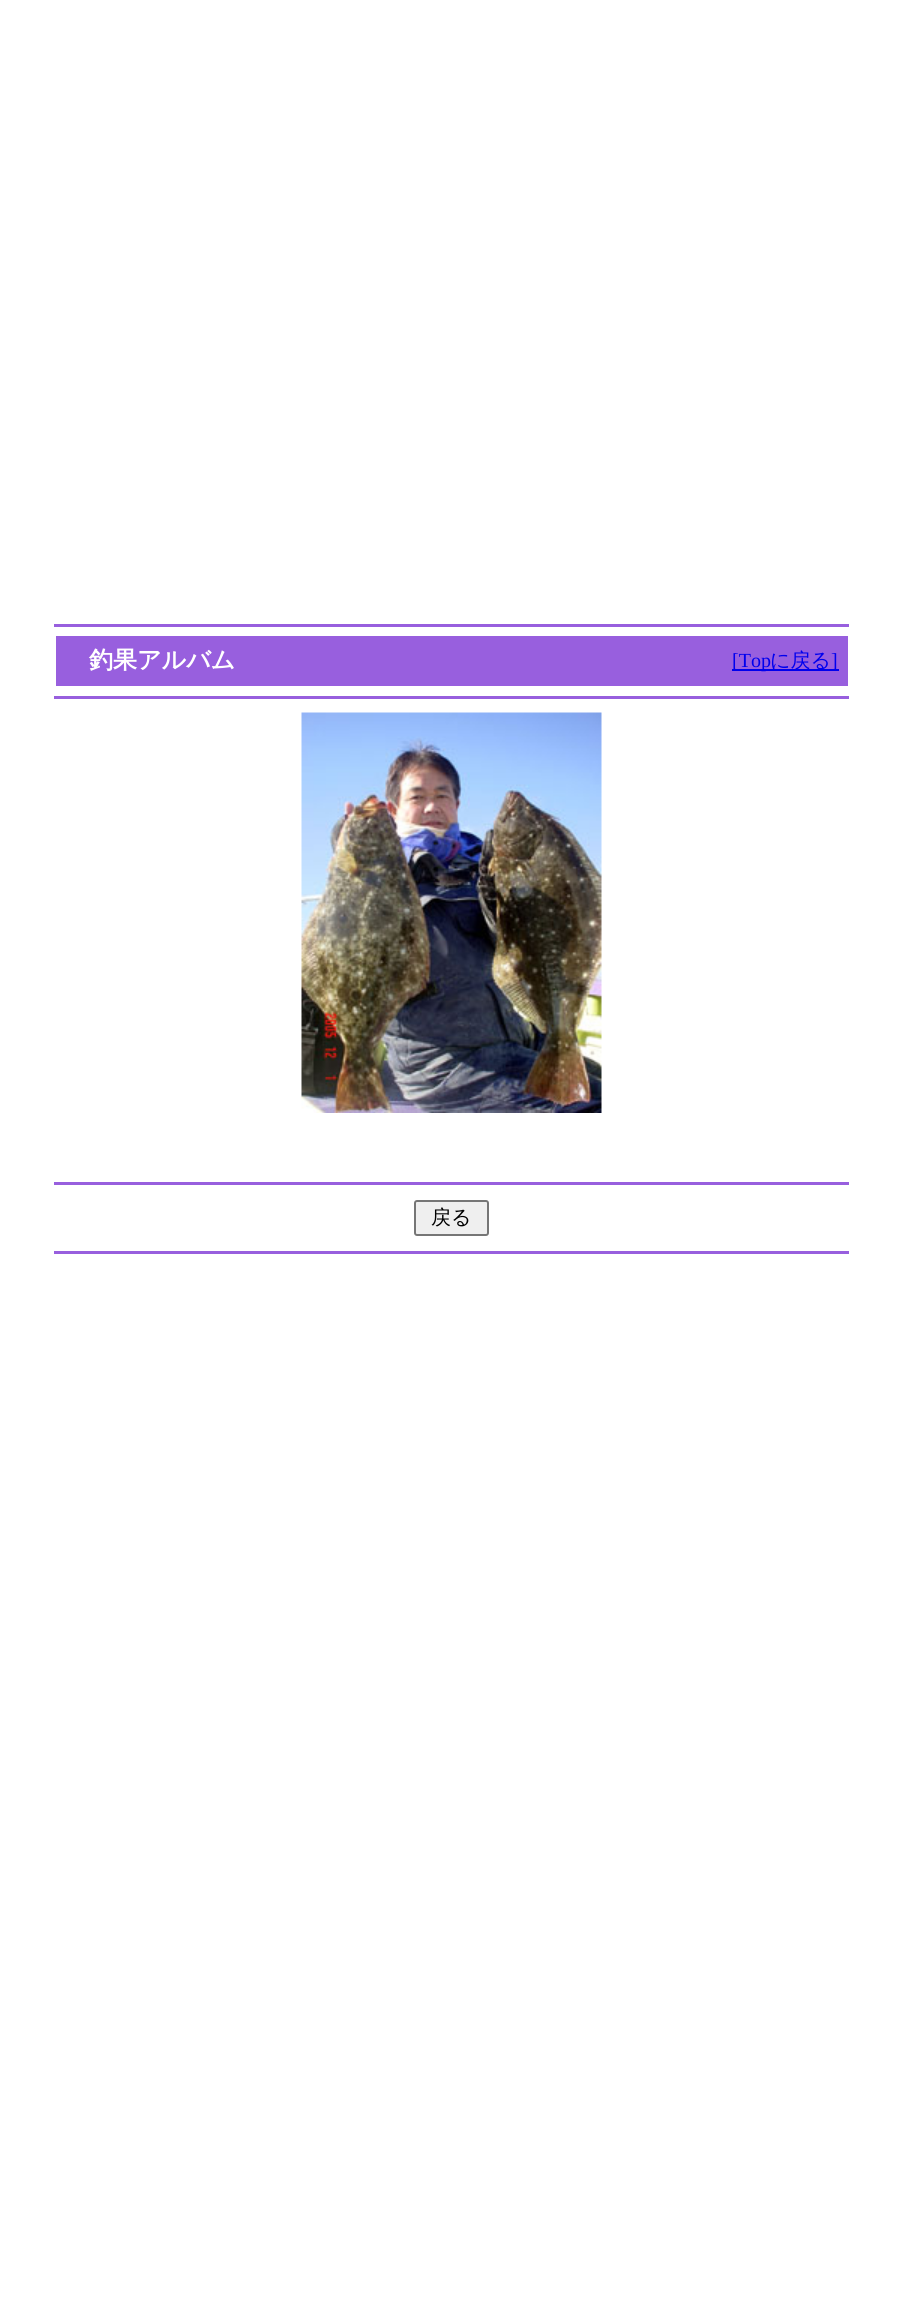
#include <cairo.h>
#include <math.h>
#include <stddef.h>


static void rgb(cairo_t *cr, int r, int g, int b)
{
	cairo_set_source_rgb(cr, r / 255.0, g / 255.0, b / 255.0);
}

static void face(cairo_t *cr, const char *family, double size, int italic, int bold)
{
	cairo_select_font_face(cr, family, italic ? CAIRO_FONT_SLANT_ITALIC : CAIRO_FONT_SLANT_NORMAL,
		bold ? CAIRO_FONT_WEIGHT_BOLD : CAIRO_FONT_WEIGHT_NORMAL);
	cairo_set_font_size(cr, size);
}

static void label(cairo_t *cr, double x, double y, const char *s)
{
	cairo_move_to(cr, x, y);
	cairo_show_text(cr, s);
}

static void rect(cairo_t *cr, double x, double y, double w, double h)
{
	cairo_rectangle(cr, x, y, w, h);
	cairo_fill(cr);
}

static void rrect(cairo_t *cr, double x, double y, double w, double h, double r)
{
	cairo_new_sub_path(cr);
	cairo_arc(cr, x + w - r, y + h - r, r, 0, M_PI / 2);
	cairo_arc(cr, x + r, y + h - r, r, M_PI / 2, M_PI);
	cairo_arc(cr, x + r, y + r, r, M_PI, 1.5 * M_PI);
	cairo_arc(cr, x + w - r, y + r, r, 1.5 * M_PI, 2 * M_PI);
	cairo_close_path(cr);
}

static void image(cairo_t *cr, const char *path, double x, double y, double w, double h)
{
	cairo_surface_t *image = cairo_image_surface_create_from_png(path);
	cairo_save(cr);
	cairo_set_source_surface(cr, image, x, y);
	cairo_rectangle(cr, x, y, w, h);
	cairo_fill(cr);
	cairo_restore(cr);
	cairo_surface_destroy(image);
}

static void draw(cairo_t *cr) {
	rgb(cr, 255, 255, 255);
	cairo_paint(cr);
	rgb(cr, 152, 95, 222);
	rect(cr, 54, 624, 795, 3);
	rect(cr, 56, 636, 792, 50);
	face(cr, "WenQuanYi Zen Hei", 24, 0, 1);
	rgb(cr, 255, 255, 255);
	label(cr, 89, 668, "釣果アルバム");
	rgb(cr, 0, 0, 238);
	rect(cr, 732, 669, 107, 2);
	face(cr, "Liberation Serif", 20, 0, 0);
	label(cr, 732, 667, "[Top");
	face(cr, "WenQuanYi Zen Hei Medium", 20, 0, 0);
	label(cr, 770, 667, "に戻る");
	face(cr, "Liberation Serif", 20, 0, 0);
	label(cr, 831, 667, "]");
	rgb(cr, 152, 95, 222);
	rect(cr, 54, 696, 795, 3);
	image(cr, "image0.png", 301, 712, 301, 401);
	rect(cr, 54, 1182, 795, 3);
	rgb(cr, 239, 239, 239);
	rrect(cr, 415, 1201, 73, 34, 2);
	cairo_fill_preserve(cr);
	rgb(cr, 118, 118, 118);
	cairo_stroke(cr);
	face(cr, "WenQuanYi Zen Hei Medium", 20, 0, 0);
	rgb(cr, 0, 0, 0);
	label(cr, 431, 1224, "戻る");
	rgb(cr, 152, 95, 222);
	rect(cr, 54, 1251, 795, 3);
}

int main(void) {
	cairo_surface_t *surface = cairo_image_surface_create(CAIRO_FORMAT_RGB24, 902, 2303);
	cairo_t *cr = cairo_create(surface);
	cairo_font_options_t *options = cairo_font_options_create();
	cairo_font_options_set_hint_metrics(options, CAIRO_HINT_METRICS_OFF);
	cairo_font_options_set_hint_style(options, CAIRO_HINT_STYLE_NONE);
	cairo_set_font_options(cr, options);
	cairo_set_miter_limit(cr, 4);
	draw(cr);
	cairo_surface_write_to_png(surface, "render.png");
	cairo_font_options_destroy(options);
	cairo_destroy(cr);
	cairo_surface_destroy(surface);
	return 0;
}
